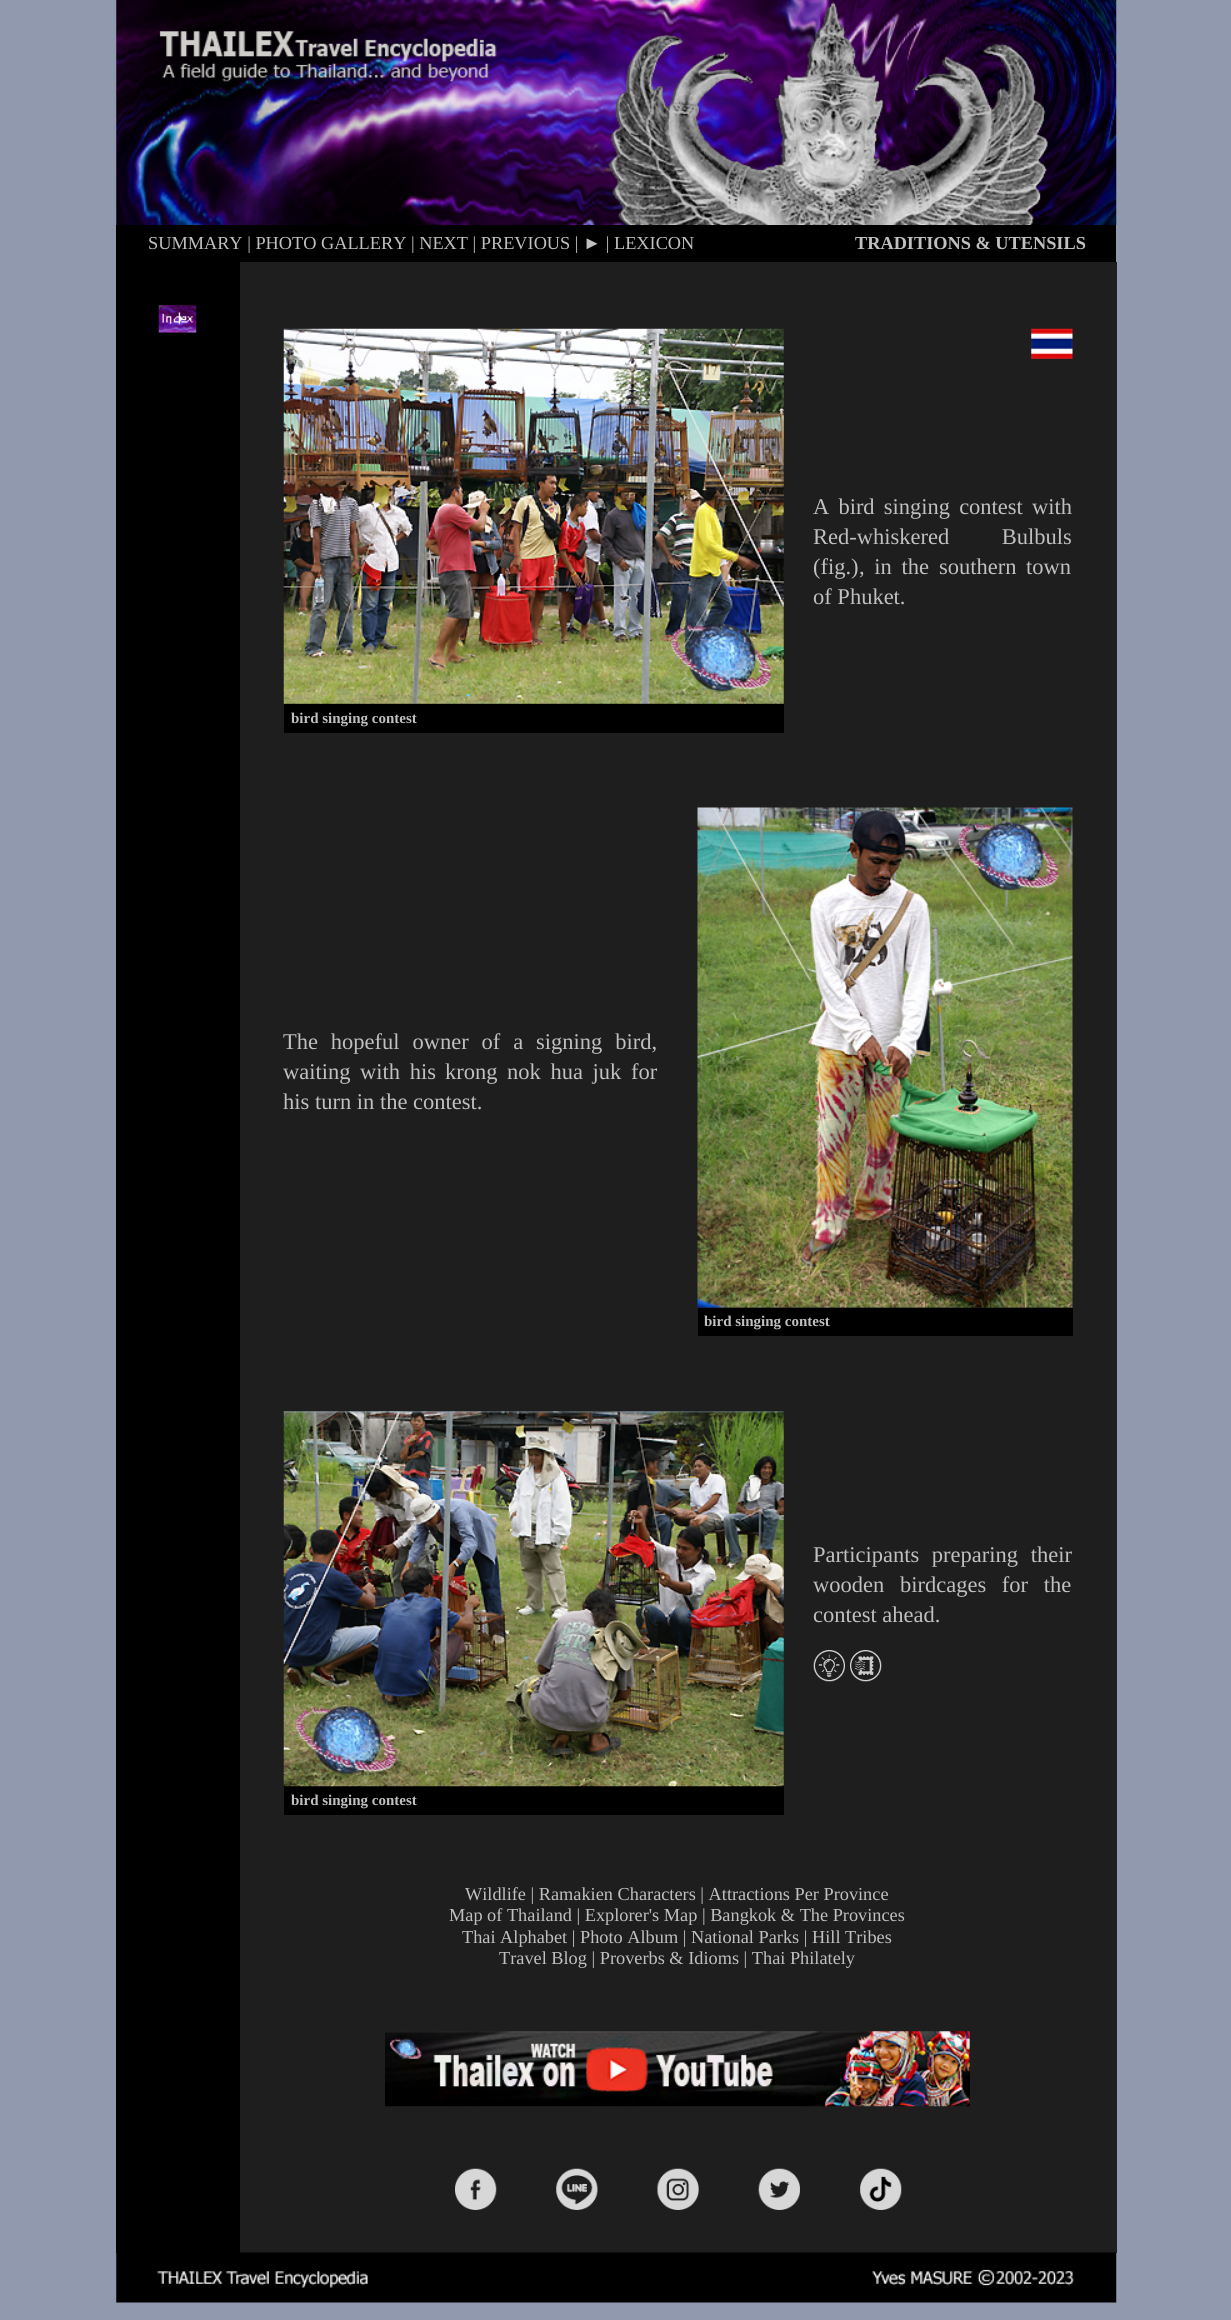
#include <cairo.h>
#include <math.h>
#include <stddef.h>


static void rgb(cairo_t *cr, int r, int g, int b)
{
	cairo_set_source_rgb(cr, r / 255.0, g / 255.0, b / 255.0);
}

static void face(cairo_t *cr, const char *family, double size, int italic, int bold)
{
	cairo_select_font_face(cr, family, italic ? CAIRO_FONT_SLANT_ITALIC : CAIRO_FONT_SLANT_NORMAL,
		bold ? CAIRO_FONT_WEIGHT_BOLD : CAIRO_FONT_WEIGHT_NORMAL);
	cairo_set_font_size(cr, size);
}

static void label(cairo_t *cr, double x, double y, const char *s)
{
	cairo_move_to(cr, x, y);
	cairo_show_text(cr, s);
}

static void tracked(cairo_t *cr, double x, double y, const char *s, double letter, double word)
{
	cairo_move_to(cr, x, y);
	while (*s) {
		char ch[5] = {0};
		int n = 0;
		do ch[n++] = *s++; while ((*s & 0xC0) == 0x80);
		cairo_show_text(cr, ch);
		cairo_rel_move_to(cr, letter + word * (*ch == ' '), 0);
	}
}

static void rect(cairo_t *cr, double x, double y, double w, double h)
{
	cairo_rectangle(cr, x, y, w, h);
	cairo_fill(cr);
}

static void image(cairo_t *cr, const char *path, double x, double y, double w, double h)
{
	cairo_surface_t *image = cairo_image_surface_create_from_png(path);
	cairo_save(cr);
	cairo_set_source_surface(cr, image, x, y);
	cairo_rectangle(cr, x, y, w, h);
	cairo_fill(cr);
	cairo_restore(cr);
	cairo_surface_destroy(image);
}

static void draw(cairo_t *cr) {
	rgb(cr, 145, 153, 174);
	cairo_paint(cr);
	image(cr, "image0.png", 116, 0, 1001, 225);
	rgb(cr, 0, 0, 0);
	rect(cr, 116, 225, 1000, 38);
	face(cr, "Liberation Serif", 18.3, 0, 0);
	rgb(cr, 192, 192, 192);
	label(cr, 148, 249, "SUMMARY | PHOTO GALLERY | NEXT | PREVIOUS | ► | LEXICON");
	face(cr, "Liberation Serif", 18.3, 0, 1);
	label(cr, 855, 249, "TRADITIONS & UTENSILS");
	rgb(cr, 0, 0, 0);
	rect(cr, 116, 263, 124, 1990);
	image(cr, "image1.png", 158, 305, 39, 28);
	rgb(cr, 30, 30, 30);
	rect(cr, 240, 262, 877, 1991);
	face(cr, "Liberation Serif", 22.5, 0, 0);
	rgb(cr, 192, 192, 192);
	tracked(cr, 813, 514, "A bird singing contest with", 0, 3.5);
	tracked(cr, 813, 544, "Red-whiskered Bulbuls", 0, 47);
	label(cr, 813, 574, "(fig.)");
	tracked(cr, 859, 574, ", in the", 0, 4);
	tracked(cr, 939, 574, "southern town", 0, 4);
	label(cr, 813, 604, "of Phuket.");
	image(cr, "image2.png", 1031, 328, 42, 31);
	image(cr, "image3.png", 283, 328, 501, 376);
	rgb(cr, 0, 0, 0);
	rect(cr, 284, 704, 500, 29);
	face(cr, "Liberation Serif", 15, 0, 1);
	rgb(cr, 192, 192, 192);
	label(cr, 291, 723, "bird singing contest");
	face(cr, "Liberation Serif", 22.5, 0, 0);
	tracked(cr, 283, 1049, "The hopeful owner of a signing bird,", 0, 7.25);
	tracked(cr, 283, 1079, "waiting with his", 0, 4);
	tracked(cr, 445, 1079, "krong nok hua juk", 0, 4);
	label(cr, 631, 1079, "for");
	label(cr, 283, 1109, "his turn in the contest.");
	image(cr, "image4.png", 697, 807, 376, 501);
	rgb(cr, 0, 0, 0);
	rect(cr, 698, 1308, 375, 28);
	face(cr, "Liberation Serif", 15, 0, 1);
	rgb(cr, 192, 192, 192);
	label(cr, 704, 1326, "bird singing contest");
	face(cr, "Liberation Serif", 22.5, 0, 0);
	tracked(cr, 813, 1562, "Participants preparing their", 0, 7);
	label(cr, 813, 1592, "wooden");
	tracked(cr, 900, 1592, "birdcages for the", 0, 10);
	label(cr, 813, 1622, "contest ahead.");
	image(cr, "image5.png", 813, 1650, 32, 32);
	image(cr, "image6.png", 850, 1650, 32, 32);
	rgb(cr, 0, 0, 0);
	rect(cr, 284, 1786, 500, 29);
	image(cr, "image7.png", 283, 1411, 501, 376);
	face(cr, "Liberation Serif", 15, 0, 1);
	rgb(cr, 192, 192, 192);
	label(cr, 291, 1805, "bird singing contest");
	face(cr, "Liberation Serif", 18.3, 0, 0);
	label(cr, 465, 1900, "Wildlife | Ramakien Characters | Attractions Per Province");
	label(cr, 449, 1921, "Map of Thailand | Explorer's Map | Bangkok & The Provinces");
	label(cr, 462, 1943, "Thai Alphabet | Photo Album | National Parks | Hill Tribes");
	label(cr, 499, 1964, "Travel Blog | Proverbs & Idioms | Thai Philately");
	image(cr, "image8.png", 385, 2031, 585, 76);
	image(cr, "image9.png", 455, 2168, 42, 42);
	image(cr, "image10.png", 556, 2168, 42, 42);
	image(cr, "image11.png", 657, 2168, 42, 42);
	image(cr, "image12.png", 758, 2168, 42, 42);
	image(cr, "image13.png", 860, 2168, 42, 42);
	image(cr, "image14.png", 116, 2252, 1001, 51);
}

int main(void) {
	cairo_surface_t *surface = cairo_image_surface_create(CAIRO_FORMAT_RGB24, 1231, 2320);
	cairo_t *cr = cairo_create(surface);
	cairo_font_options_t *options = cairo_font_options_create();
	cairo_font_options_set_hint_metrics(options, CAIRO_HINT_METRICS_OFF);
	cairo_font_options_set_hint_style(options, CAIRO_HINT_STYLE_NONE);
	cairo_set_font_options(cr, options);
	cairo_set_miter_limit(cr, 4);
	draw(cr);
	cairo_surface_write_to_png(surface, "render.png");
	cairo_font_options_destroy(options);
	cairo_destroy(cr);
	cairo_surface_destroy(surface);
	return 0;
}
